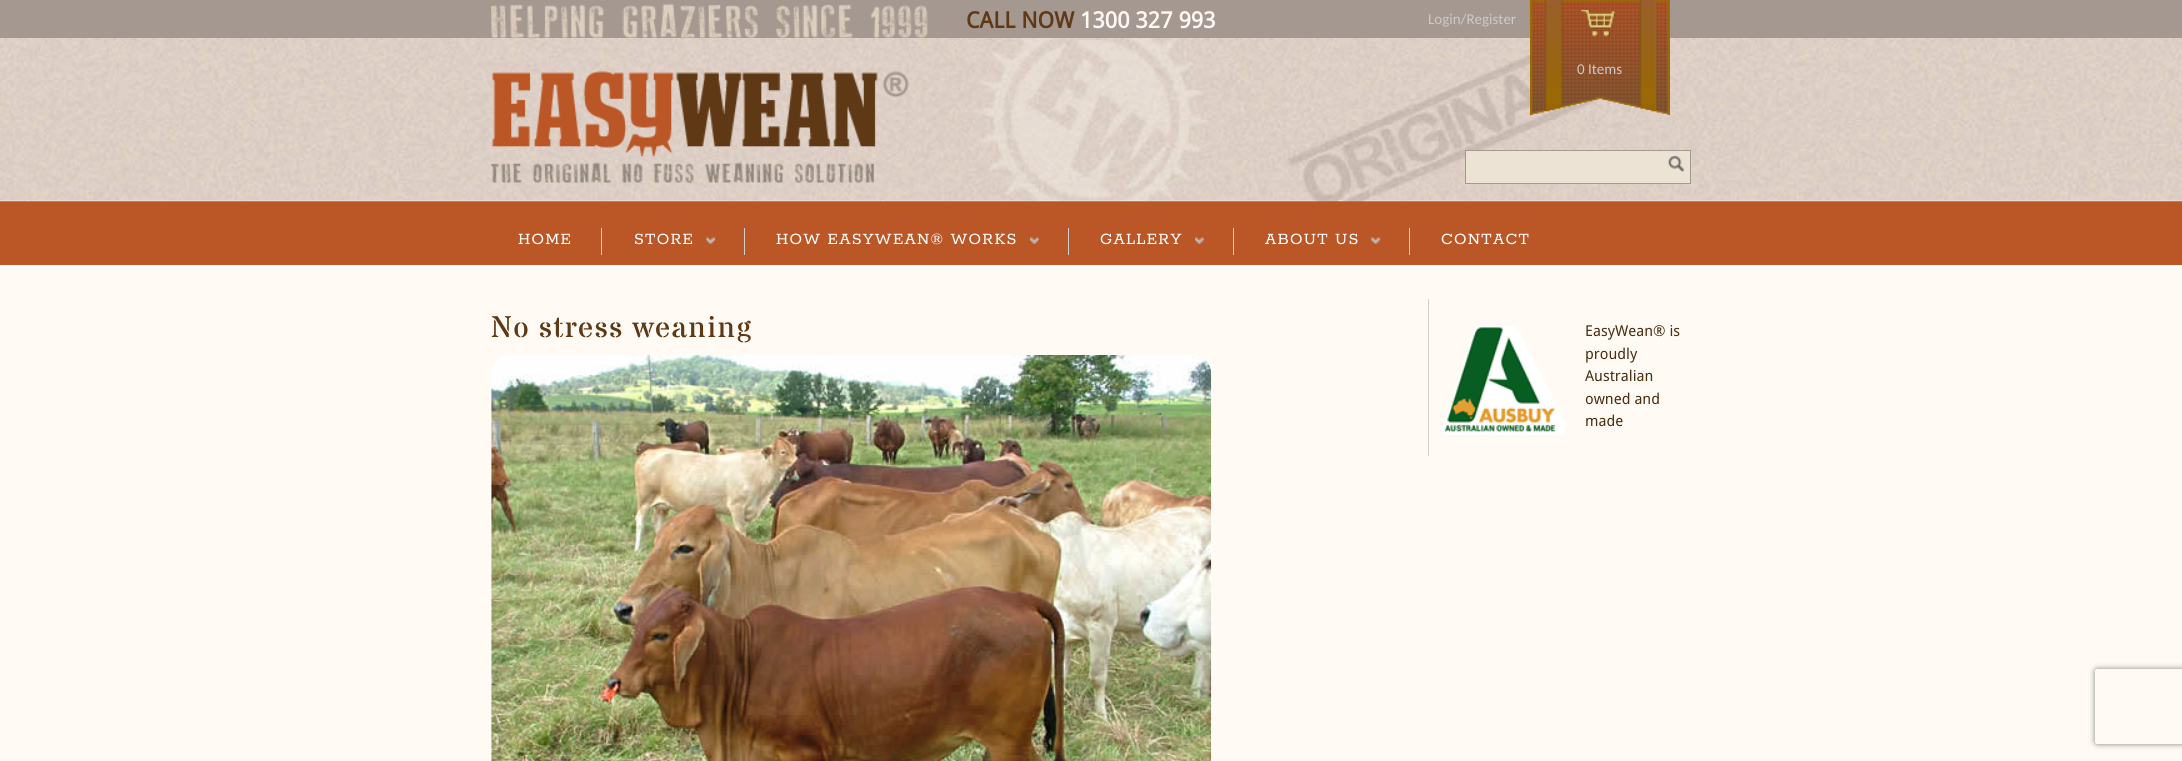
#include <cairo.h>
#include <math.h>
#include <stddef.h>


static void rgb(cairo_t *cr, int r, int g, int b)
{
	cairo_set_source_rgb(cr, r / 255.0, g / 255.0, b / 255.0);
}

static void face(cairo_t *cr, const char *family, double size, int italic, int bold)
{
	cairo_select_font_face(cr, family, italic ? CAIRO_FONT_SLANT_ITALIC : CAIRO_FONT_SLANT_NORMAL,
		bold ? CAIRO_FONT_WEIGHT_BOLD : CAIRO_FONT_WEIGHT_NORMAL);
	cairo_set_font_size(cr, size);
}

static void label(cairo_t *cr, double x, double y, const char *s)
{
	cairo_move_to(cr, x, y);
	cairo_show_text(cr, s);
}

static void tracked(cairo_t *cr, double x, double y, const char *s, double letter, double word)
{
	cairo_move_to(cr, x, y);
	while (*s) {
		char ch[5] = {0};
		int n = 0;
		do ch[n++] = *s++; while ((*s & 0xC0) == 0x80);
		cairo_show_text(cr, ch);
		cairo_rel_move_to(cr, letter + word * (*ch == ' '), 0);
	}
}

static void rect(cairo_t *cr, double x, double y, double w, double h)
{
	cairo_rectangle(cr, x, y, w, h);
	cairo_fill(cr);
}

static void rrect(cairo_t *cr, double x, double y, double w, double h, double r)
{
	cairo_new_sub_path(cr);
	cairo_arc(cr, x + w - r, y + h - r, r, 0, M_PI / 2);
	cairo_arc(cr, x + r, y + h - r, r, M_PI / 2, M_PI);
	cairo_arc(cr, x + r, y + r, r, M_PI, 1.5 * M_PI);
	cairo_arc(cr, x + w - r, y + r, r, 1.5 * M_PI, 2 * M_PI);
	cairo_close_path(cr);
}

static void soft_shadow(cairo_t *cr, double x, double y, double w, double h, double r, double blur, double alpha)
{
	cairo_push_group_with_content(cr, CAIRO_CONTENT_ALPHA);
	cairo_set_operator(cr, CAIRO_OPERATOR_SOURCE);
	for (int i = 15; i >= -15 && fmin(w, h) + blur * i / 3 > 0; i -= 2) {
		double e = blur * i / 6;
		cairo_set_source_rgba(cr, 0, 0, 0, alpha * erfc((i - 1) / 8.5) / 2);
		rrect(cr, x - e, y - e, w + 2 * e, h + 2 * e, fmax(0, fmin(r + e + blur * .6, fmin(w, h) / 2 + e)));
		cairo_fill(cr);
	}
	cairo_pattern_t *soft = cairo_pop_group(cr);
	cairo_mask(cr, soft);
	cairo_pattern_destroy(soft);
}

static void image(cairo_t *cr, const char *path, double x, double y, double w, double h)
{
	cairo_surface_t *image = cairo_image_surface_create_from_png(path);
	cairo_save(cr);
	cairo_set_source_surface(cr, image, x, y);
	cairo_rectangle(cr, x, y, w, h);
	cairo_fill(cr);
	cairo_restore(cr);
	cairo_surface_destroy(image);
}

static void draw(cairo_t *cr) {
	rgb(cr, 255, 251, 244);
	cairo_paint(cr);
	rgb(cr, 187, 87, 39);
	rect(cr, 0, 201, 2182, 64);
	image(cr, "image0.png", 0, 38, 2182, 164);
	rgb(cr, 164, 152, 145);
	rect(cr, 0, 0, 2182, 38);
	image(cr, "image1.png", 491, 3, 437, 35);
	face(cr, "Droid Sans", 22.5, 0, 1);
	rgb(cr, 95, 57, 21);
	label(cr, 966, 28, "CALL NOW");
	rgb(cr, 255, 248, 242);
	label(cr, 1080, 28, "1300 327 993");
	face(cr, "Carlito", 15, 0, 0);
	rgb(cr, 204, 202, 202);
	label(cr, 1428, 24, "Login/Register");
	image(cr, "image2.png", 1530, 0, 140, 116);
	label(cr, 1577, 74, "0 Items");
	image(cr, "image3.png", 491, 71, 418, 112);
	rgb(cr, 236, 227, 213);
	cairo_rectangle(cr, 1465.5, 150.5, 225, 33);
	cairo_fill_preserve(cr);
	rgb(cr, 164, 152, 145);
	cairo_set_line_width(cr, 1);
	cairo_stroke(cr);
	image(cr, "image4.png", 1668, 156, 16, 16);
	face(cr, "Rokkitt SemiBold", 17.5, 0, 0);
	rgb(cr, 255, 255, 255);
	tracked(cr, 518, 244, "HOME", 1.25, 0);
	rgb(cr, 207, 207, 207);
	rect(cr, 601, 228, 1, 27);
	rgb(cr, 255, 255, 255);
	tracked(cr, 634, 244, "STORE", 1.25, 0);
	image(cr, "image5.png", 706, 237, 10, 7);
	rgb(cr, 207, 207, 207);
	rect(cr, 744, 228, 1, 27);
	rgb(cr, 255, 255, 255);
	tracked(cr, 776, 244, "HOW EASYWEAN® WORKS", 1.25, 0);
	image(cr, "image6.png", 1030, 237, 9, 7);
	rgb(cr, 207, 207, 207);
	rect(cr, 1068, 228, 1, 27);
	rgb(cr, 255, 255, 255);
	tracked(cr, 1100, 244, "GALLERY", 1.25, 0);
	image(cr, "image6.png", 1195, 237, 9, 7);
	rgb(cr, 207, 207, 207);
	rect(cr, 1233, 228, 1, 27);
	rgb(cr, 255, 255, 255);
	tracked(cr, 1265, 244, "ABOUT US", 1.25, 0);
	image(cr, "image5.png", 1371, 237, 10, 7);
	rgb(cr, 207, 207, 207);
	rect(cr, 1409, 228, 1, 27);
	rgb(cr, 255, 255, 255);
	tracked(cr, 1441, 244, "CONTACT", 1.25, 0);
	face(cr, "Stardos Stencil", 30, 0, 0);
	rgb(cr, 95, 57, 21);
	tracked(cr, 491, 337, "No stress weaning", 1.25, 0);
	image(cr, "image7.png", 491, 355, 721, 406);
	rgb(cr, 209, 207, 207);
	rect(cr, 1428, 299, 1, 157);
	image(cr, "image8.png", 1441, 325, 125, 110);
	face(cr, "Droid Sans", 15, 0, 0);
	rgb(cr, 74, 47, 17);
	label(cr, 1585, 336, "EasyWean® is");
	label(cr, 1585, 359, "proudly");
	label(cr, 1585, 381, "Australian");
	label(cr, 1585, 404, "owned and");
	label(cr, 1585, 426, "made");
	cairo_save(cr);
	cairo_set_fill_rule(cr, CAIRO_FILL_RULE_EVEN_ODD);
	cairo_new_path(cr);
	cairo_move_to(cr, 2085, 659);
	cairo_line_to(cr, 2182, 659);
	cairo_line_to(cr, 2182, 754);
	cairo_line_to(cr, 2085, 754);
	cairo_close_path(cr);
	cairo_move_to(cr, 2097.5, 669);
	cairo_line_to(cr, 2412.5, 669);
	cairo_curve_to(cr, 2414, 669, 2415, 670, 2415, 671.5);
	cairo_line_to(cr, 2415, 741.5);
	cairo_curve_to(cr, 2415, 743, 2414, 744, 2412.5, 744);
	cairo_line_to(cr, 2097.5, 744);
	cairo_curve_to(cr, 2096, 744, 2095, 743, 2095, 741.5);
	cairo_line_to(cr, 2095, 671.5);
	cairo_curve_to(cr, 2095, 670, 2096, 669, 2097.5, 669);
	cairo_close_path(cr);
	cairo_clip(cr);
	rgb(cr, 128, 128, 128);
	soft_shadow(cr, 2095, 669, 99, 75, 2.5, 3, 1);
	cairo_restore(cr);
}

int main(void) {
	cairo_surface_t *surface = cairo_image_surface_create(CAIRO_FORMAT_RGB24, 2182, 761);
	cairo_t *cr = cairo_create(surface);
	cairo_font_options_t *options = cairo_font_options_create();
	cairo_font_options_set_hint_metrics(options, CAIRO_HINT_METRICS_OFF);
	cairo_font_options_set_hint_style(options, CAIRO_HINT_STYLE_NONE);
	cairo_set_font_options(cr, options);
	cairo_set_miter_limit(cr, 4);
	draw(cr);
	cairo_surface_write_to_png(surface, "render.png");
	cairo_font_options_destroy(options);
	cairo_destroy(cr);
	cairo_surface_destroy(surface);
	return 0;
}
